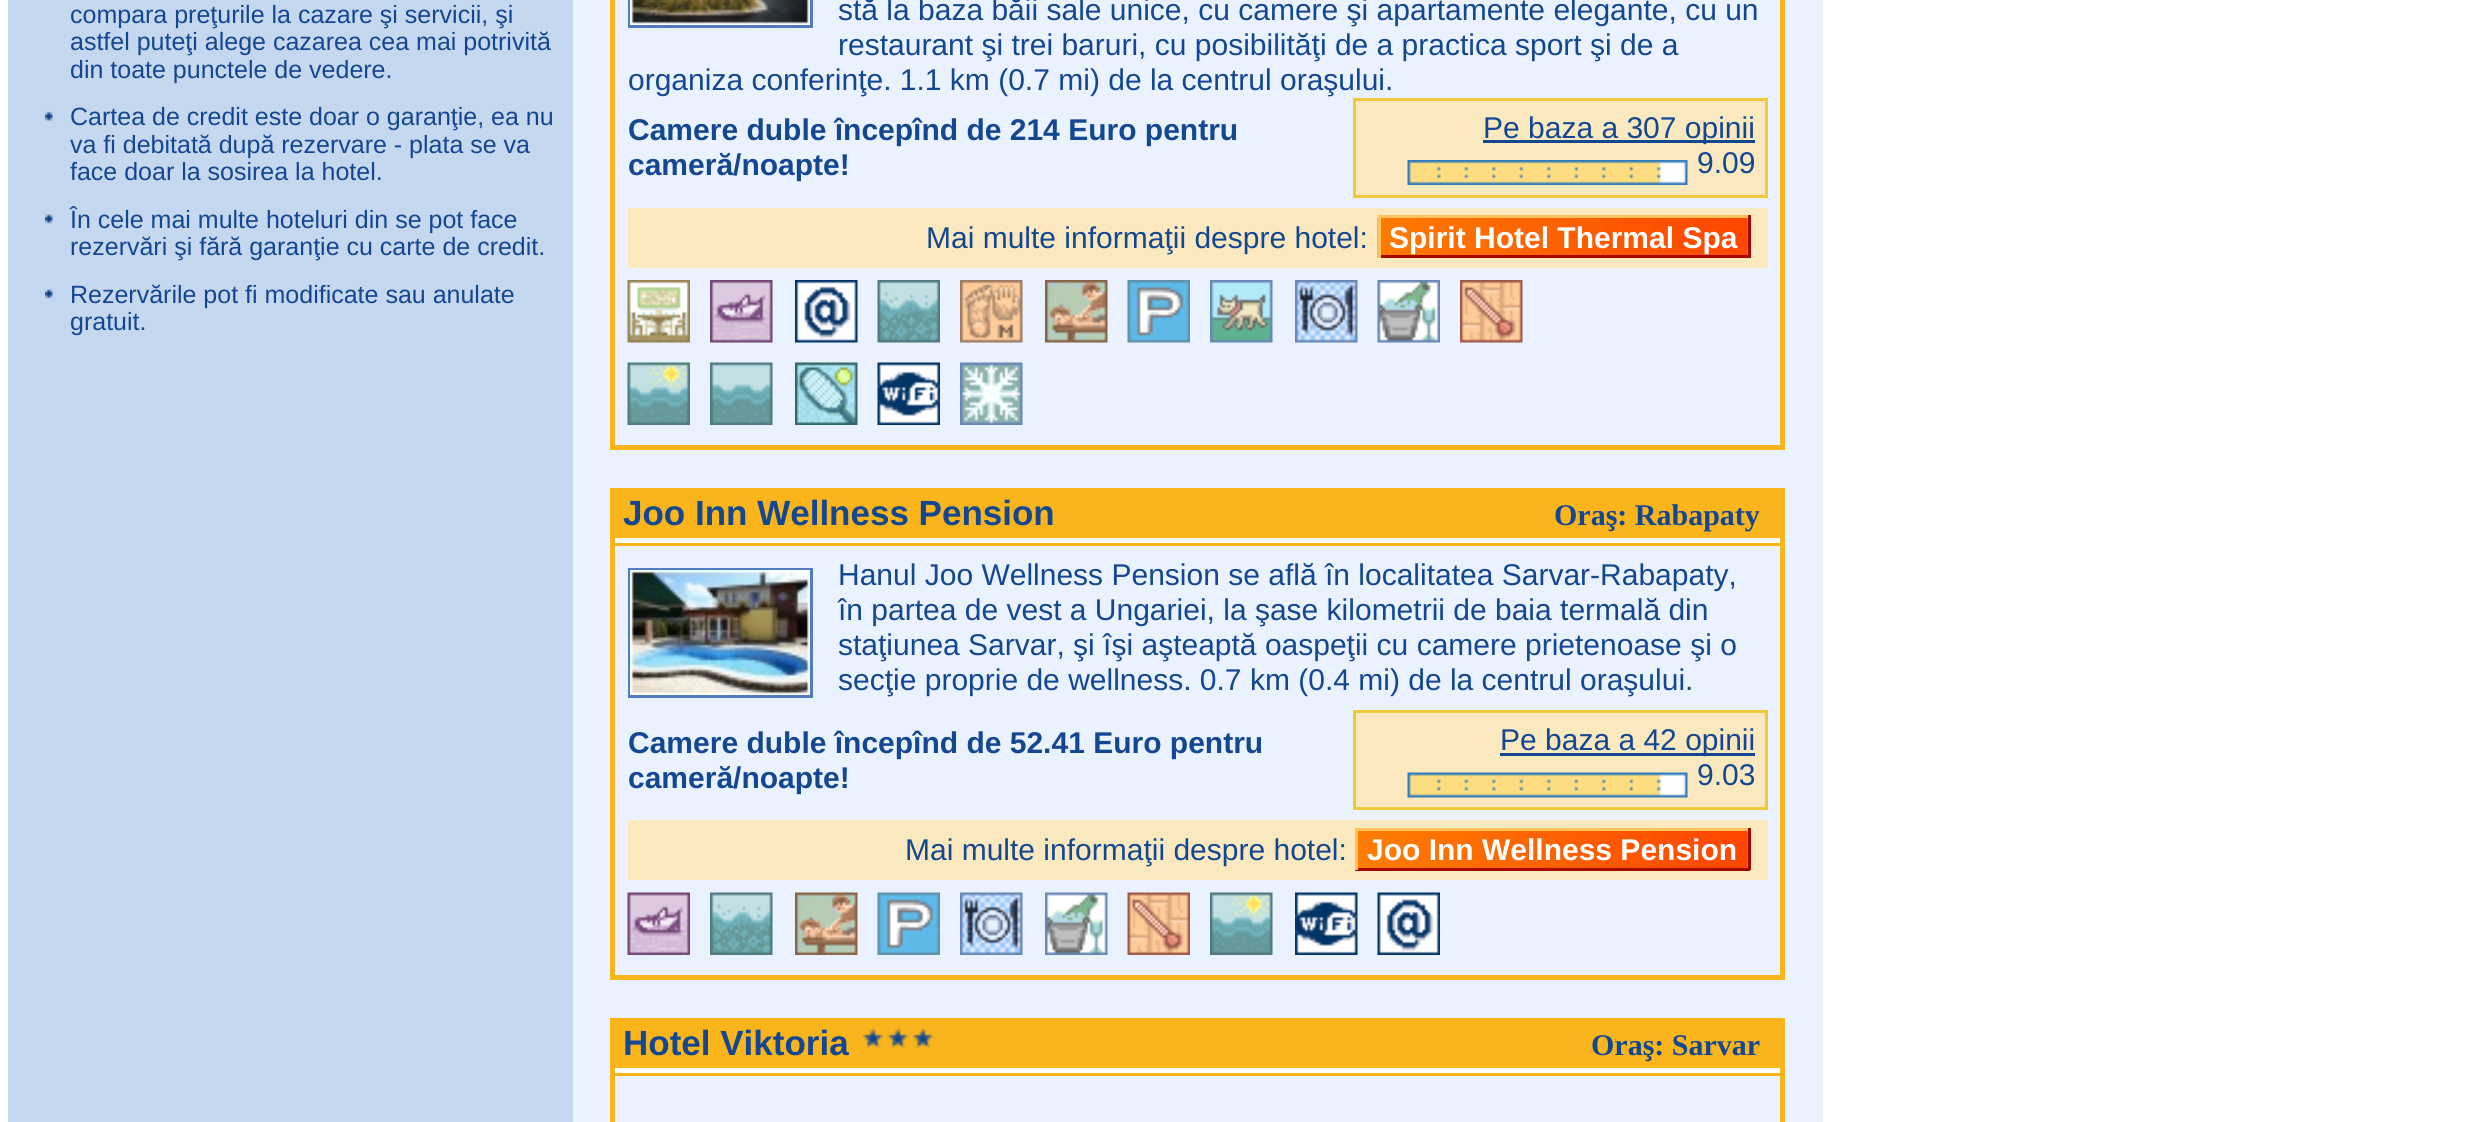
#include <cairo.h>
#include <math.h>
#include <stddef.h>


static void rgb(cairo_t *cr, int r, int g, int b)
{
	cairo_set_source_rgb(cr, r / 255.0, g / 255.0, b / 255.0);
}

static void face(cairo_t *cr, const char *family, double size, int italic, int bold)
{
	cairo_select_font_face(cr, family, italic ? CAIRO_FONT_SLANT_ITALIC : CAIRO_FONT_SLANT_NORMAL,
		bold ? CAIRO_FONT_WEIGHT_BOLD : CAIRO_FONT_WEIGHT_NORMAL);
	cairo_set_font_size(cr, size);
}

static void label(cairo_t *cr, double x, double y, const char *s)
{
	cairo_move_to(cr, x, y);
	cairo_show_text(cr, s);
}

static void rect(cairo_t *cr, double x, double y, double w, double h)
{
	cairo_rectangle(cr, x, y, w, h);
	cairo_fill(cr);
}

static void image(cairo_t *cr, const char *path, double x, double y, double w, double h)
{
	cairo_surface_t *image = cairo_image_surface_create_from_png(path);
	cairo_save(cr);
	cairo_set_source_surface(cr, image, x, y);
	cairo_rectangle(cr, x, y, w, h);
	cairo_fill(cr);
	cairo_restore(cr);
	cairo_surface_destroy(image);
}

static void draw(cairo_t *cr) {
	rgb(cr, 255, 255, 255);
	cairo_paint(cr);
	rgb(cr, 198, 215, 240);
	rect(cr, 8, 0, 565, 1122);
	face(cr, "Liberation Sans", 25, 0, 0);
	rgb(cr, 19, 71, 145);
	label(cr, 70, 23, "compara preţurile la cazare şi servicii, şi");
	label(cr, 70, 50, "astfel puteţi alege cazarea cea mai potrivită");
	label(cr, 70, 78, "din toate punctele de vedere.");
	image(cr, "image0.png", 45, 111, 8, 10);
	label(cr, 70, 125, "Cartea de credit este doar o garanţie, ea nu");
	label(cr, 70, 153, "va fi debitată după rezervare - plata se va");
	label(cr, 70, 180, "face doar la sosirea la hotel.");
	image(cr, "image1.png", 45, 214, 8, 10);
	label(cr, 70, 228, "În cele mai multe hoteluri din se pot face");
	label(cr, 70, 255, "rezervări şi fără garanţie cu carte de credit.");
	image(cr, "image1.png", 45, 289, 8, 10);
	label(cr, 70, 303, "Rezervările pot fi modificate sau anulate");
	label(cr, 70, 330, "gratuit.");
	rgb(cr, 235, 242, 255);
	rect(cr, 573, 0, 1250, 1122);
	rgb(cr, 250, 181, 29);
	rect(cr, 1780, 0, 5, 450);
	rect(cr, 610, 445, 1175, 5);
	rect(cr, 610, 0, 5, 450);
	cairo_rectangle(cr, 629.5, -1.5, 182, 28);
	rgb(cr, 81, 124, 193);
	cairo_set_line_width(cr, 3);
	cairo_stroke(cr);
	image(cr, "image2.png", 630, 0, 180, 25);
	face(cr, "Liberation Sans", 30, 0, 0);
	rgb(cr, 19, 71, 145);
	label(cr, 838, 20, "stă la baza băii sale unice, cu camere şi apartamente elegante, cu un");
	label(cr, 838, 55, "restaurant şi trei baruri, cu posibilităţi de a practica sport şi de a");
	label(cr, 628, 90, "organiza conferinţe. 1.1 km (0.7 mi) de la centrul oraşului.");
	face(cr, "Liberation Sans", 30, 0, 1);
	label(cr, 628, 140, "Camere duble începînd de 214 Euro pentru");
	label(cr, 628, 175, "cameră/noapte!");
	rgb(cr, 250, 232, 191);
	cairo_rectangle(cr, 1354.5, 99.5, 412, 97);
	cairo_fill_preserve(cr);
	rgb(cr, 240, 200, 60);
	cairo_stroke(cr);
	rgb(cr, 19, 71, 145);
	rect(cr, 1483, 140, 272, 3);
	face(cr, "Liberation Sans", 30, 0, 0);
	label(cr, 1483, 138, "Pe baza a 307 opinii");
	image(cr, "image3.png", 1407, 160, 281, 25);
	label(cr, 1697, 173, "9.09");
	rgb(cr, 250, 232, 191);
	rect(cr, 628, 208, 1140, 60);
	rgb(cr, 19, 71, 145);
	label(cr, 926, 248, "Mai multe informaţii despre hotel:");
	rgb(cr, 251, 138, 4);
	rect(cr, 1747, 218, 1, 37);
	image(cr, "image4.png", 1377, 217, 371, 41);
	face(cr, "Liberation Sans", 30, 0, 1);
	rgb(cr, 255, 255, 255);
	label(cr, 1389, 248, "Spirit Hotel Thermal Spa");
	rgb(cr, 255, 195, 94);
	rect(cr, 1378, 215, 372, 3);
	rgb(cr, 163, 7, 0);
	rect(cr, 1748, 215, 3, 43);
	rect(cr, 1378, 255, 372, 3);
	rgb(cr, 255, 195, 94);
	rect(cr, 1378, 215, 3, 43);
	image(cr, "image5.png", 627, 280, 63, 63);
	image(cr, "image6.png", 710, 280, 63, 63);
	image(cr, "image7.png", 795, 280, 63, 63);
	image(cr, "image8.png", 877, 280, 63, 63);
	image(cr, "image9.png", 960, 280, 63, 63);
	image(cr, "image10.png", 1045, 280, 63, 63);
	image(cr, "image11.png", 1127, 280, 63, 63);
	image(cr, "image12.png", 1210, 280, 63, 63);
	image(cr, "image13.png", 1295, 280, 63, 63);
	image(cr, "image14.png", 1377, 280, 63, 63);
	image(cr, "image15.png", 1460, 280, 63, 63);
	image(cr, "image16.png", 627, 362, 63, 63);
	image(cr, "image17.png", 710, 362, 63, 63);
	image(cr, "image18.png", 795, 362, 63, 63);
	image(cr, "image19.png", 877, 362, 63, 63);
	image(cr, "image20.png", 960, 362, 63, 63);
	rgb(cr, 250, 181, 29);
	rect(cr, 610, 488, 1175, 50);
	face(cr, "Liberation Sans", 35, 0, 1);
	rgb(cr, 19, 71, 145);
	label(cr, 623, 525, "Joo Inn Wellness Pension");
	face(cr, "Liberation Serif", 30, 0, 1);
	label(cr, 1554, 525, "Oraş: Rabapaty");
	rgb(cr, 255, 255, 255);
	rect(cr, 610, 538, 1175, 5);
	rgb(cr, 250, 181, 29);
	rect(cr, 1780, 538, 5, 8);
	rect(cr, 610, 543, 1175, 3);
	rect(cr, 610, 538, 5, 8);
	rect(cr, 1780, 545, 5, 435);
	rect(cr, 610, 975, 1175, 5);
	rect(cr, 610, 545, 5, 435);
	cairo_rectangle(cr, 629.5, 569.5, 182, 127);
	rgb(cr, 81, 124, 193);
	cairo_stroke(cr);
	image(cr, "image21.png", 630, 570, 180, 125);
	face(cr, "Liberation Sans", 30, 0, 0);
	rgb(cr, 19, 71, 145);
	label(cr, 838, 585, "Hanul Joo Wellness Pension se află în localitatea Sarvar-Rabapaty,");
	label(cr, 838, 620, "în partea de vest a Ungariei, la şase kilometrii de baia termală din");
	label(cr, 838, 655, "staţiunea Sarvar, şi îşi aşteaptă oaspeţii cu camere prietenoase şi o");
	label(cr, 838, 690, "secţie proprie de wellness. 0.7 km (0.4 mi) de la centrul oraşului.");
	face(cr, "Liberation Sans", 30, 0, 1);
	label(cr, 628, 753, "Camere duble începînd de 52.41 Euro pentru");
	label(cr, 628, 788, "cameră/noapte!");
	rgb(cr, 250, 232, 191);
	cairo_rectangle(cr, 1354.5, 711.5, 412, 97);
	cairo_fill_preserve(cr);
	rgb(cr, 240, 200, 60);
	cairo_stroke(cr);
	rgb(cr, 19, 71, 145);
	rect(cr, 1500, 753, 255, 3);
	face(cr, "Liberation Sans", 30, 0, 0);
	label(cr, 1500, 750, "Pe baza a 42 opinii");
	image(cr, "image22.png", 1407, 772, 281, 26);
	label(cr, 1697, 785, "9.03");
	rgb(cr, 250, 232, 191);
	rect(cr, 628, 820, 1140, 60);
	rgb(cr, 19, 71, 145);
	label(cr, 905, 860, "Mai multe informaţii despre hotel:");
	rgb(cr, 251, 138, 4);
	rect(cr, 1747, 831, 1, 37);
	image(cr, "image23.png", 1358, 831, 390, 37);
	face(cr, "Liberation Sans", 30, 0, 1);
	rgb(cr, 255, 255, 255);
	label(cr, 1367, 860, "Joo Inn Wellness Pension");
	rgb(cr, 255, 195, 94);
	rect(cr, 1355, 828, 395, 3);
	rgb(cr, 163, 7, 0);
	rect(cr, 1748, 828, 3, 42);
	rect(cr, 1355, 868, 395, 3);
	rgb(cr, 255, 195, 94);
	rect(cr, 1355, 828, 3, 42);
	image(cr, "image24.png", 627, 892, 63, 63);
	image(cr, "image25.png", 710, 892, 63, 63);
	image(cr, "image26.png", 795, 892, 63, 63);
	image(cr, "image27.png", 877, 892, 63, 63);
	image(cr, "image28.png", 960, 892, 63, 63);
	image(cr, "image29.png", 1045, 892, 63, 63);
	image(cr, "image30.png", 1127, 892, 63, 63);
	image(cr, "image31.png", 1210, 892, 63, 63);
	image(cr, "image32.png", 1295, 892, 63, 63);
	image(cr, "image33.png", 1377, 892, 63, 63);
	rgb(cr, 250, 181, 29);
	rect(cr, 610, 1018, 1175, 50);
	face(cr, "Liberation Sans", 35, 0, 1);
	rgb(cr, 19, 71, 145);
	label(cr, 623, 1055, "Hotel Viktoria");
	image(cr, "image34.png", 862, 1027, 72, 22);
	face(cr, "Liberation Serif", 30, 0, 1);
	label(cr, 1591, 1055, "Oraş: Sarvar");
	rgb(cr, 255, 255, 255);
	rect(cr, 610, 1068, 1175, 5);
	rgb(cr, 250, 181, 29);
	rect(cr, 1780, 1068, 5, 8);
	rect(cr, 610, 1073, 1175, 3);
	rect(cr, 610, 1068, 5, 54);
	rect(cr, 1780, 1075, 5, 47);
}

int main(void) {
	cairo_surface_t *surface = cairo_image_surface_create(CAIRO_FORMAT_RGB24, 2490, 1122);
	cairo_t *cr = cairo_create(surface);
	cairo_font_options_t *options = cairo_font_options_create();
	cairo_font_options_set_hint_metrics(options, CAIRO_HINT_METRICS_OFF);
	cairo_font_options_set_hint_style(options, CAIRO_HINT_STYLE_NONE);
	cairo_set_font_options(cr, options);
	cairo_set_miter_limit(cr, 4);
	draw(cr);
	cairo_surface_write_to_png(surface, "render.png");
	cairo_font_options_destroy(options);
	cairo_destroy(cr);
	cairo_surface_destroy(surface);
	return 0;
}
